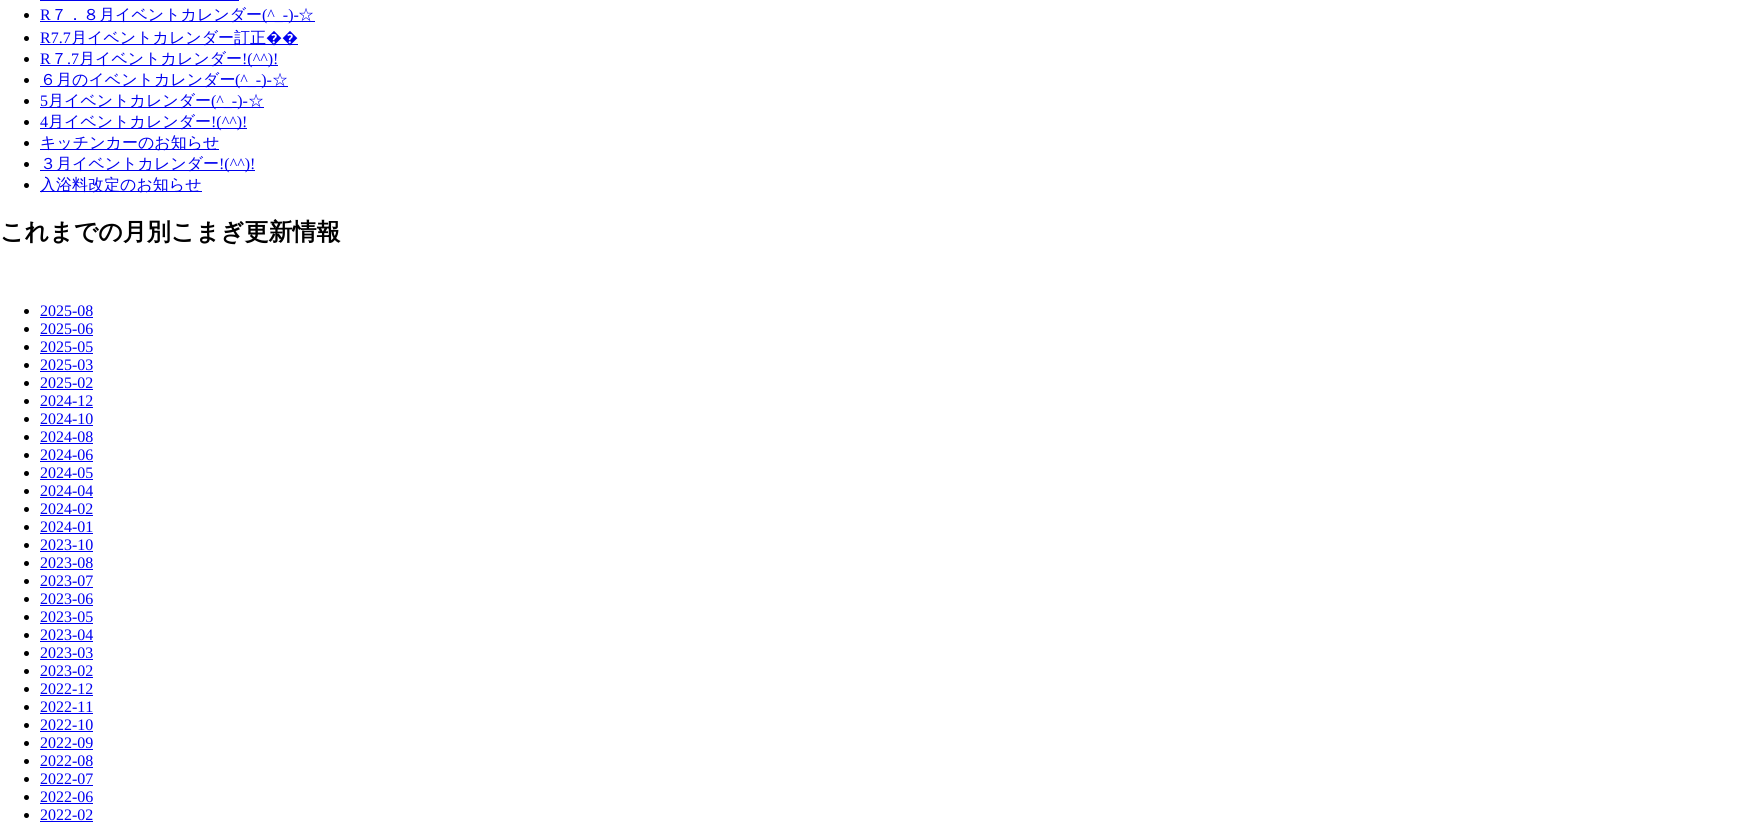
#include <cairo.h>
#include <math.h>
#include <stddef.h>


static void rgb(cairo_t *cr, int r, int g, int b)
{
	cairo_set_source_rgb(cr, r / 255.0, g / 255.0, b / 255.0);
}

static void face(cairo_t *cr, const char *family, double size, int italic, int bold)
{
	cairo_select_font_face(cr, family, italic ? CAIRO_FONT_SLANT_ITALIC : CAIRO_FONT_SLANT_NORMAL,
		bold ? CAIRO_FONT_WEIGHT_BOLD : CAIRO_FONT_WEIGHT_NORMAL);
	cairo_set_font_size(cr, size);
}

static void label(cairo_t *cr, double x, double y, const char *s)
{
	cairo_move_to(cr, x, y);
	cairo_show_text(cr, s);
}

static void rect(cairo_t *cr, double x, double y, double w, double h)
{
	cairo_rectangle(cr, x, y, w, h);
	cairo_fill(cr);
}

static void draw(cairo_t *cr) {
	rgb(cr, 255, 255, 255);
	cairo_paint(cr);
	rgb(cr, 0, 0, 238);
	rect(cr, 40, 0, 199, 1);
	rgb(cr, 0, 0, 0);
	cairo_arc(cr, 26.5, 15.5, 2.5, 0, 2 * M_PI);
	cairo_fill(cr);
	face(cr, "Liberation Serif", 16, 0, 0);
	rgb(cr, 0, 0, 238);
	label(cr, 40, 20, "R");
	rect(cr, 40, 21, 275, 1);
	face(cr, "WenQuanYi Zen Hei Medium", 16, 0, 0);
	label(cr, 51, 20, "７．８月イベントカレンダー");
	face(cr, "Liberation Serif", 16, 0, 0);
	label(cr, 262, 20, "(^_-)-");
	face(cr, "WenQuanYi Zen Hei Medium", 16, 0, 0);
	label(cr, 298, 20, "☆");
	rgb(cr, 0, 0, 0);
	cairo_new_path(cr);
	cairo_arc(cr, 26.5, 38.5, 2.5, 0, 2 * M_PI);
	cairo_fill(cr);
	face(cr, "Liberation Serif", 16, 0, 0);
	rgb(cr, 0, 0, 238);
	label(cr, 40, 43, "R7.7");
	rect(cr, 40, 44, 258, 1);
	face(cr, "WenQuanYi Zen Hei Medium", 16, 0, 0);
	label(cr, 71, 43, "月イベントカレンダー訂正");
	face(cr, "Noto Sans", 16, 0, 0);
	label(cr, 266, 43, "��");
	rgb(cr, 0, 0, 0);
	cairo_new_path(cr);
	cairo_arc(cr, 26.5, 59.5, 2.5, 0, 2 * M_PI);
	cairo_fill(cr);
	face(cr, "Liberation Serif", 16, 0, 0);
	rgb(cr, 0, 0, 238);
	label(cr, 40, 64, "R");
	face(cr, "WenQuanYi Zen Hei Medium", 16, 0, 0);
	label(cr, 51, 64, "７");
	face(cr, "Liberation Serif", 16, 0, 0);
	label(cr, 67, 64, ".7");
	rect(cr, 40, 65, 238, 1);
	face(cr, "WenQuanYi Zen Hei Medium", 16, 0, 0);
	label(cr, 79, 64, "月イベントカレンダー");
	face(cr, "Liberation Serif", 16, 0, 0);
	label(cr, 242, 64, "!(^^)!");
	rgb(cr, 0, 0, 0);
	cairo_new_path(cr);
	cairo_arc(cr, 26.5, 80.5, 2.5, 0, 2 * M_PI);
	cairo_fill(cr);
	rgb(cr, 0, 0, 238);
	rect(cr, 40, 86, 248, 1);
	face(cr, "WenQuanYi Zen Hei Medium", 16, 0, 0);
	label(cr, 40, 85, "６月のイベントカレンダー");
	face(cr, "Liberation Serif", 16, 0, 0);
	label(cr, 235, 85, "(^_-)-");
	face(cr, "WenQuanYi Zen Hei Medium", 16, 0, 0);
	label(cr, 272, 85, "☆");
	rgb(cr, 0, 0, 0);
	cairo_new_path(cr);
	cairo_arc(cr, 26.5, 101.5, 2.5, 0, 2 * M_PI);
	cairo_fill(cr);
	face(cr, "Liberation Serif", 16, 0, 0);
	rgb(cr, 0, 0, 238);
	label(cr, 40, 106, "5");
	rect(cr, 40, 107, 224, 1);
	face(cr, "WenQuanYi Zen Hei Medium", 16, 0, 0);
	label(cr, 48, 106, "月イベントカレンダー");
	face(cr, "Liberation Serif", 16, 0, 0);
	label(cr, 211, 106, "(^_-)-");
	face(cr, "WenQuanYi Zen Hei Medium", 16, 0, 0);
	label(cr, 248, 106, "☆");
	rgb(cr, 0, 0, 0);
	cairo_new_path(cr);
	cairo_arc(cr, 26.5, 122.5, 2.5, 0, 2 * M_PI);
	cairo_fill(cr);
	face(cr, "Liberation Serif", 16, 0, 0);
	rgb(cr, 0, 0, 238);
	label(cr, 40, 127, "4");
	rect(cr, 40, 128, 207, 1);
	face(cr, "WenQuanYi Zen Hei Medium", 16, 0, 0);
	label(cr, 48, 127, "月イベントカレンダー");
	face(cr, "Liberation Serif", 16, 0, 0);
	label(cr, 211, 127, "!(^^)!");
	rgb(cr, 0, 0, 0);
	cairo_new_path(cr);
	cairo_arc(cr, 26.5, 143.5, 2.5, 0, 2 * M_PI);
	cairo_fill(cr);
	rgb(cr, 0, 0, 238);
	rect(cr, 40, 149, 179, 1);
	face(cr, "WenQuanYi Zen Hei Medium", 16, 0, 0);
	label(cr, 40, 148, "キッチンカーのお知らせ");
	rgb(cr, 0, 0, 0);
	cairo_new_path(cr);
	cairo_arc(cr, 26.5, 164.5, 2.5, 0, 2 * M_PI);
	cairo_fill(cr);
	rgb(cr, 0, 0, 238);
	rect(cr, 40, 170, 215, 1);
	label(cr, 40, 169, "３月イベントカレンダー");
	face(cr, "Liberation Serif", 16, 0, 0);
	label(cr, 219, 169, "!(^^)!");
	rgb(cr, 0, 0, 0);
	cairo_new_path(cr);
	cairo_arc(cr, 26.5, 185.5, 2.5, 0, 2 * M_PI);
	cairo_fill(cr);
	rgb(cr, 0, 0, 238);
	rect(cr, 40, 191, 162, 1);
	face(cr, "WenQuanYi Zen Hei Medium", 16, 0, 0);
	label(cr, 40, 190, "入浴料改定のお知らせ");
	face(cr, "WenQuanYi Zen Hei", 24, 0, 1);
	rgb(cr, 0, 0, 0);
	label(cr, 0, 240, "これまでの月別こまぎ更新情報");
	cairo_new_path(cr);
	cairo_arc(cr, 26.5, 311.5, 2.5, 0, 2 * M_PI);
	cairo_fill(cr);
	face(cr, "Liberation Serif", 16, 0, 0);
	rgb(cr, 0, 0, 238);
	label(cr, 40, 316, "2025-08");
	rect(cr, 40, 317, 53, 1);
	rgb(cr, 0, 0, 0);
	cairo_new_path(cr);
	cairo_arc(cr, 26.5, 329.5, 2.5, 0, 2 * M_PI);
	cairo_fill(cr);
	rgb(cr, 0, 0, 238);
	label(cr, 40, 334, "2025-06");
	rect(cr, 40, 335, 53, 1);
	rgb(cr, 0, 0, 0);
	cairo_new_path(cr);
	cairo_arc(cr, 26.5, 347.5, 2.5, 0, 2 * M_PI);
	cairo_fill(cr);
	rgb(cr, 0, 0, 238);
	label(cr, 40, 352, "2025-05");
	rect(cr, 40, 353, 53, 1);
	rgb(cr, 0, 0, 0);
	cairo_new_path(cr);
	cairo_arc(cr, 26.5, 365.5, 2.5, 0, 2 * M_PI);
	cairo_fill(cr);
	rgb(cr, 0, 0, 238);
	label(cr, 40, 370, "2025-03");
	rect(cr, 40, 371, 53, 1);
	rgb(cr, 0, 0, 0);
	cairo_new_path(cr);
	cairo_arc(cr, 26.5, 383.5, 2.5, 0, 2 * M_PI);
	cairo_fill(cr);
	rgb(cr, 0, 0, 238);
	label(cr, 40, 388, "2025-02");
	rect(cr, 40, 389, 53, 1);
	rgb(cr, 0, 0, 0);
	cairo_new_path(cr);
	cairo_arc(cr, 26.5, 401.5, 2.5, 0, 2 * M_PI);
	cairo_fill(cr);
	rgb(cr, 0, 0, 238);
	label(cr, 40, 406, "2024-12");
	rect(cr, 40, 407, 53, 1);
	rgb(cr, 0, 0, 0);
	cairo_new_path(cr);
	cairo_arc(cr, 26.5, 419.5, 2.5, 0, 2 * M_PI);
	cairo_fill(cr);
	rgb(cr, 0, 0, 238);
	label(cr, 40, 424, "2024-10");
	rect(cr, 40, 425, 53, 1);
	rgb(cr, 0, 0, 0);
	cairo_new_path(cr);
	cairo_arc(cr, 26.5, 437.5, 2.5, 0, 2 * M_PI);
	cairo_fill(cr);
	rgb(cr, 0, 0, 238);
	label(cr, 40, 442, "2024-08");
	rect(cr, 40, 443, 53, 1);
	rgb(cr, 0, 0, 0);
	cairo_new_path(cr);
	cairo_arc(cr, 26.5, 455.5, 2.5, 0, 2 * M_PI);
	cairo_fill(cr);
	rgb(cr, 0, 0, 238);
	label(cr, 40, 460, "2024-06");
	rect(cr, 40, 461, 53, 1);
	rgb(cr, 0, 0, 0);
	cairo_new_path(cr);
	cairo_arc(cr, 26.5, 473.5, 2.5, 0, 2 * M_PI);
	cairo_fill(cr);
	rgb(cr, 0, 0, 238);
	label(cr, 40, 478, "2024-05");
	rect(cr, 40, 479, 53, 1);
	rgb(cr, 0, 0, 0);
	cairo_new_path(cr);
	cairo_arc(cr, 26.5, 491.5, 2.5, 0, 2 * M_PI);
	cairo_fill(cr);
	rgb(cr, 0, 0, 238);
	label(cr, 40, 496, "2024-04");
	rect(cr, 40, 497, 53, 1);
	rgb(cr, 0, 0, 0);
	cairo_new_path(cr);
	cairo_arc(cr, 26.5, 509.5, 2.5, 0, 2 * M_PI);
	cairo_fill(cr);
	rgb(cr, 0, 0, 238);
	label(cr, 40, 514, "2024-02");
	rect(cr, 40, 515, 53, 1);
	rgb(cr, 0, 0, 0);
	cairo_new_path(cr);
	cairo_arc(cr, 26.5, 527.5, 2.5, 0, 2 * M_PI);
	cairo_fill(cr);
	rgb(cr, 0, 0, 238);
	label(cr, 40, 532, "2024-01");
	rect(cr, 40, 533, 53, 1);
	rgb(cr, 0, 0, 0);
	cairo_new_path(cr);
	cairo_arc(cr, 26.5, 545.5, 2.5, 0, 2 * M_PI);
	cairo_fill(cr);
	rgb(cr, 0, 0, 238);
	label(cr, 40, 550, "2023-10");
	rect(cr, 40, 551, 53, 1);
	rgb(cr, 0, 0, 0);
	cairo_new_path(cr);
	cairo_arc(cr, 26.5, 563.5, 2.5, 0, 2 * M_PI);
	cairo_fill(cr);
	rgb(cr, 0, 0, 238);
	label(cr, 40, 568, "2023-08");
	rect(cr, 40, 569, 53, 1);
	rgb(cr, 0, 0, 0);
	cairo_new_path(cr);
	cairo_arc(cr, 26.5, 581.5, 2.5, 0, 2 * M_PI);
	cairo_fill(cr);
	rgb(cr, 0, 0, 238);
	label(cr, 40, 586, "2023-07");
	rect(cr, 40, 587, 53, 1);
	rgb(cr, 0, 0, 0);
	cairo_new_path(cr);
	cairo_arc(cr, 26.5, 599.5, 2.5, 0, 2 * M_PI);
	cairo_fill(cr);
	rgb(cr, 0, 0, 238);
	label(cr, 40, 604, "2023-06");
	rect(cr, 40, 605, 53, 1);
	rgb(cr, 0, 0, 0);
	cairo_new_path(cr);
	cairo_arc(cr, 26.5, 617.5, 2.5, 0, 2 * M_PI);
	cairo_fill(cr);
	rgb(cr, 0, 0, 238);
	label(cr, 40, 622, "2023-05");
	rect(cr, 40, 623, 53, 1);
	rgb(cr, 0, 0, 0);
	cairo_new_path(cr);
	cairo_arc(cr, 26.5, 635.5, 2.5, 0, 2 * M_PI);
	cairo_fill(cr);
	rgb(cr, 0, 0, 238);
	label(cr, 40, 640, "2023-04");
	rect(cr, 40, 641, 53, 1);
	rgb(cr, 0, 0, 0);
	cairo_new_path(cr);
	cairo_arc(cr, 26.5, 653.5, 2.5, 0, 2 * M_PI);
	cairo_fill(cr);
	rgb(cr, 0, 0, 238);
	label(cr, 40, 658, "2023-03");
	rect(cr, 40, 659, 53, 1);
	rgb(cr, 0, 0, 0);
	cairo_new_path(cr);
	cairo_arc(cr, 26.5, 671.5, 2.5, 0, 2 * M_PI);
	cairo_fill(cr);
	rgb(cr, 0, 0, 238);
	label(cr, 40, 676, "2023-02");
	rect(cr, 40, 677, 53, 1);
	rgb(cr, 0, 0, 0);
	cairo_new_path(cr);
	cairo_arc(cr, 26.5, 689.5, 2.5, 0, 2 * M_PI);
	cairo_fill(cr);
	rgb(cr, 0, 0, 238);
	label(cr, 40, 694, "2022-12");
	rect(cr, 40, 695, 53, 1);
	rgb(cr, 0, 0, 0);
	cairo_new_path(cr);
	cairo_arc(cr, 26.5, 707.5, 2.5, 0, 2 * M_PI);
	cairo_fill(cr);
	rgb(cr, 0, 0, 238);
	label(cr, 40, 712, "2022-11");
	rect(cr, 40, 713, 53, 1);
	rgb(cr, 0, 0, 0);
	cairo_new_path(cr);
	cairo_arc(cr, 26.5, 725.5, 2.5, 0, 2 * M_PI);
	cairo_fill(cr);
	rgb(cr, 0, 0, 238);
	label(cr, 40, 730, "2022-10");
	rect(cr, 40, 731, 53, 1);
	rgb(cr, 0, 0, 0);
	cairo_new_path(cr);
	cairo_arc(cr, 26.5, 743.5, 2.5, 0, 2 * M_PI);
	cairo_fill(cr);
	rgb(cr, 0, 0, 238);
	label(cr, 40, 748, "2022-09");
	rect(cr, 40, 749, 53, 1);
	rgb(cr, 0, 0, 0);
	cairo_new_path(cr);
	cairo_arc(cr, 26.5, 761.5, 2.5, 0, 2 * M_PI);
	cairo_fill(cr);
	rgb(cr, 0, 0, 238);
	label(cr, 40, 766, "2022-08");
	rect(cr, 40, 767, 53, 1);
	rgb(cr, 0, 0, 0);
	cairo_new_path(cr);
	cairo_arc(cr, 26.5, 779.5, 2.5, 0, 2 * M_PI);
	cairo_fill(cr);
	rgb(cr, 0, 0, 238);
	label(cr, 40, 784, "2022-07");
	rect(cr, 40, 785, 53, 1);
	rgb(cr, 0, 0, 0);
	cairo_new_path(cr);
	cairo_arc(cr, 26.5, 797.5, 2.5, 0, 2 * M_PI);
	cairo_fill(cr);
	rgb(cr, 0, 0, 238);
	label(cr, 40, 802, "2022-06");
	rect(cr, 40, 803, 53, 1);
	rgb(cr, 0, 0, 0);
	cairo_new_path(cr);
	cairo_arc(cr, 26.5, 815.5, 2.5, 0, 2 * M_PI);
	cairo_fill(cr);
	rgb(cr, 0, 0, 238);
	label(cr, 40, 820, "2022-02");
	rect(cr, 40, 821, 53, 1);
}

int main(void) {
	cairo_surface_t *surface = cairo_image_surface_create(CAIRO_FORMAT_RGB24, 1761, 827);
	cairo_t *cr = cairo_create(surface);
	cairo_font_options_t *options = cairo_font_options_create();
	cairo_font_options_set_hint_metrics(options, CAIRO_HINT_METRICS_OFF);
	cairo_font_options_set_hint_style(options, CAIRO_HINT_STYLE_NONE);
	cairo_set_font_options(cr, options);
	cairo_set_miter_limit(cr, 4);
	draw(cr);
	cairo_surface_write_to_png(surface, "render.png");
	cairo_font_options_destroy(options);
	cairo_destroy(cr);
	cairo_surface_destroy(surface);
	return 0;
}
